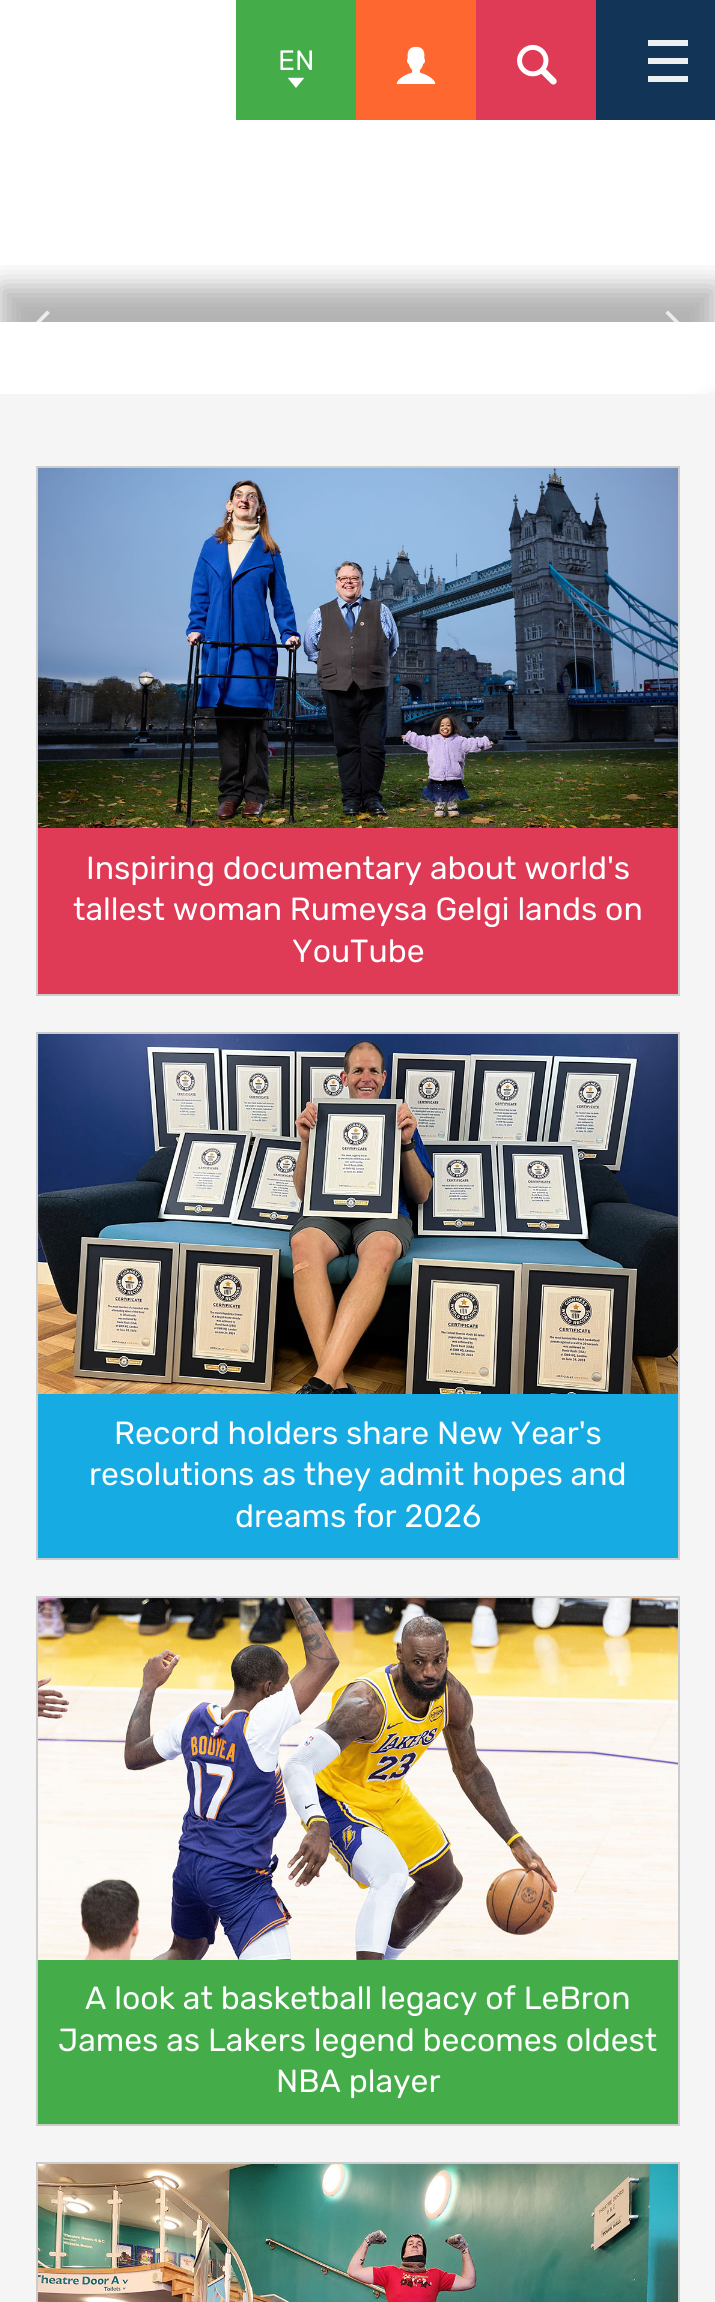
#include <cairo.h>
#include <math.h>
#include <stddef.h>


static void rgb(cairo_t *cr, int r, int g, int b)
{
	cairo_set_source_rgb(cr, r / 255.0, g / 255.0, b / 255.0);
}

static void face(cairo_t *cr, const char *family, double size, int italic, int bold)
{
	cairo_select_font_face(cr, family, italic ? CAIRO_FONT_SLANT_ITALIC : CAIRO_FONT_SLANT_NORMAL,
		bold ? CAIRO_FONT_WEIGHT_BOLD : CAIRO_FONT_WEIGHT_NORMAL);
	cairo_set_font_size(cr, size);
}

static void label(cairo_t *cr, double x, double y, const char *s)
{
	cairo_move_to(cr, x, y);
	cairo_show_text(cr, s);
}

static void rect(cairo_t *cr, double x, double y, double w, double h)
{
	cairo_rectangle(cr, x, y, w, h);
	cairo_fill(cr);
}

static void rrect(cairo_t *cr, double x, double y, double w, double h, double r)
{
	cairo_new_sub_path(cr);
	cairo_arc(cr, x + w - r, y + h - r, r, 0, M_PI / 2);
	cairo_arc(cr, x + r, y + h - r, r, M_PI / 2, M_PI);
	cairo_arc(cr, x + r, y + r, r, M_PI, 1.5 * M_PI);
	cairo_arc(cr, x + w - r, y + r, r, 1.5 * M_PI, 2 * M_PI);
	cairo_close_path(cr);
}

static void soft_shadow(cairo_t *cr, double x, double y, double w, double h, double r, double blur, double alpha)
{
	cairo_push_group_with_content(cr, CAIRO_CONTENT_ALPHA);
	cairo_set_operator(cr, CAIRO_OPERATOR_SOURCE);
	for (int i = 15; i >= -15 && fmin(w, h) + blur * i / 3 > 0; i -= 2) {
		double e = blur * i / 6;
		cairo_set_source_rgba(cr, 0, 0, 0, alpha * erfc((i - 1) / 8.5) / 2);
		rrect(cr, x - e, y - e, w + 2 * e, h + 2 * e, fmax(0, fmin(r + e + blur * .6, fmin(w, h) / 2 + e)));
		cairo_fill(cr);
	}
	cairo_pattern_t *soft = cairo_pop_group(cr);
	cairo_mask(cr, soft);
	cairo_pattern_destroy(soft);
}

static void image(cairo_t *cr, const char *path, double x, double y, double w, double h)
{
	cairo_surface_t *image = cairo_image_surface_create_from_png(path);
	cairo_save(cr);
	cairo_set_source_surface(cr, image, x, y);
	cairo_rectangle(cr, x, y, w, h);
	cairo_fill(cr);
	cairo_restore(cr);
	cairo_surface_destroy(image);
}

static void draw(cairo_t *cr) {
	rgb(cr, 255, 255, 255);
	cairo_paint(cr);
	rgb(cr, 68, 173, 73);
	rect(cr, 236, 0, 120, 120);
	face(cr, "Rubik", 28, 0, 0);
	rgb(cr, 255, 255, 255);
	label(cr, 278, 70, "EN");
	image(cr, "image0.png", 288, 77, 16, 11);
	rgb(cr, 255, 103, 48);
	rect(cr, 356, 0, 120, 120);
	image(cr, "image1.png", 396, 46, 40, 38);
	rgb(cr, 223, 58, 86);
	rect(cr, 476, 0, 120, 120);
	image(cr, "image2.png", 517, 44, 40, 41);
	rgb(cr, 18, 52, 87);
	rect(cr, 596, 0, 119, 120);
	rgb(cr, 236, 240, 241);
	rect(cr, 648, 40, 40, 6);
	rect(cr, 648, 58, 40, 6);
	rect(cr, 648, 76, 40, 6);
	cairo_save(cr);
	cairo_rectangle(cr, 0, 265, 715, 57);
	cairo_clip(cr);
	rgb(cr, 0, 0, 0);
	soft_shadow(cr, 0, 286, 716, 72, 0, 14, 0.3);
	cairo_restore(cr);
	rgb(cr, 0, 0, 0);
	soft_shadow(cr, 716, 408, 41, 72, 0, 14, 0.3);
	cairo_set_source_rgba(cr, 1, 1, 1, 0.75);
	cairo_new_path(cr);
	cairo_move_to(cr, 50, 313);
	cairo_line_to(cr, 47, 310.5);
	cairo_line_to(cr, 29.5, 328.5);
	cairo_line_to(cr, 47, 346.5);
	cairo_line_to(cr, 50, 344);
	cairo_line_to(cr, 34.5, 328.5);
	cairo_close_path(cr);
	cairo_fill(cr);
	cairo_new_path(cr);
	cairo_move_to(cr, 686, 328.5);
	cairo_line_to(cr, 668, 310.5);
	cairo_line_to(cr, 665.5, 313);
	cairo_line_to(cr, 680.5, 328.5);
	cairo_line_to(cr, 665.5, 344);
	cairo_line_to(cr, 668, 346.5);
	cairo_close_path(cr);
	cairo_fill(cr);
	rgb(cr, 245, 245, 245);
	rect(cr, 0, 394, 715, 1908);
	cairo_rectangle(cr, 37, 467, 642, 528);
	rgb(cr, 204, 204, 204);
	cairo_stroke(cr);
	image(cr, "image3.png", 38, 468, 640, 360);
	rgb(cr, 223, 58, 86);
	rect(cr, 38, 828, 640, 166);
	face(cr, "Rubik", 32, 0, 0);
	rgb(cr, 255, 255, 255);
	label(cr, 86, 879, "Inspiring documentary about world's");
	label(cr, 73, 920, "tallest woman Rumeysa Gelgi lands on");
	label(cr, 292, 962, "YouTube");
	cairo_rectangle(cr, 37, 1033, 642, 526);
	rgb(cr, 204, 204, 204);
	cairo_stroke(cr);
	image(cr, "image4.png", 38, 1034, 640, 360);
	rgb(cr, 22, 172, 227);
	rect(cr, 38, 1394, 640, 164);
	rgb(cr, 255, 255, 255);
	label(cr, 114, 1444, "Record holders share New Year's");
	label(cr, 89, 1485, "resolutions as they admit hopes and");
	label(cr, 235, 1527, "dreams for 2026");
	cairo_rectangle(cr, 37, 1597, 642, 528);
	rgb(cr, 204, 204, 204);
	cairo_stroke(cr);
	image(cr, "image5.png", 38, 1598, 640, 362);
	rgb(cr, 68, 173, 73);
	rect(cr, 38, 1960, 640, 164);
	rgb(cr, 255, 255, 255);
	label(cr, 85, 2009, "A look at basketball legacy of LeBron");
	label(cr, 58, 2051, "James as Lakers legend becomes oldest");
	label(cr, 276, 2092, "NBA player");
	cairo_rectangle(cr, 37, 2163, 642, 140);
	rgb(cr, 204, 204, 204);
	cairo_stroke(cr);
	image(cr, "image6.png", 38, 2164, 640, 138);
}

int main(void) {
	cairo_surface_t *surface = cairo_image_surface_create(CAIRO_FORMAT_RGB24, 715, 2302);
	cairo_t *cr = cairo_create(surface);
	cairo_font_options_t *options = cairo_font_options_create();
	cairo_font_options_set_hint_metrics(options, CAIRO_HINT_METRICS_OFF);
	cairo_font_options_set_hint_style(options, CAIRO_HINT_STYLE_NONE);
	cairo_set_font_options(cr, options);
	cairo_set_miter_limit(cr, 4);
	draw(cr);
	cairo_surface_write_to_png(surface, "render.png");
	cairo_font_options_destroy(options);
	cairo_destroy(cr);
	cairo_surface_destroy(surface);
	return 0;
}
